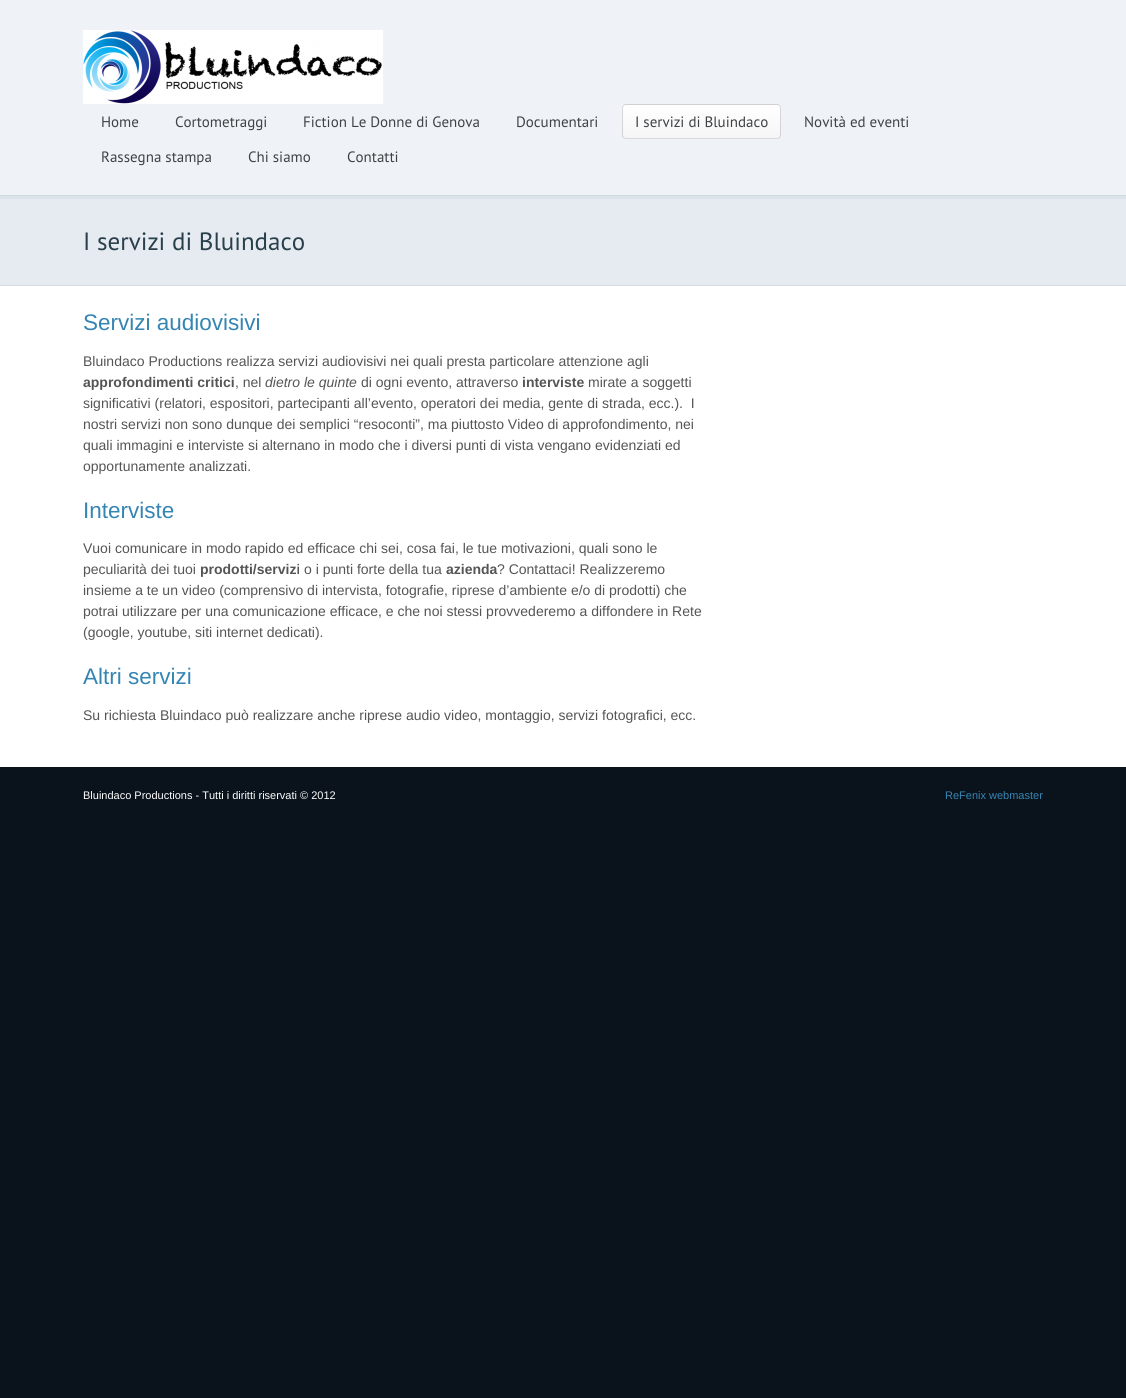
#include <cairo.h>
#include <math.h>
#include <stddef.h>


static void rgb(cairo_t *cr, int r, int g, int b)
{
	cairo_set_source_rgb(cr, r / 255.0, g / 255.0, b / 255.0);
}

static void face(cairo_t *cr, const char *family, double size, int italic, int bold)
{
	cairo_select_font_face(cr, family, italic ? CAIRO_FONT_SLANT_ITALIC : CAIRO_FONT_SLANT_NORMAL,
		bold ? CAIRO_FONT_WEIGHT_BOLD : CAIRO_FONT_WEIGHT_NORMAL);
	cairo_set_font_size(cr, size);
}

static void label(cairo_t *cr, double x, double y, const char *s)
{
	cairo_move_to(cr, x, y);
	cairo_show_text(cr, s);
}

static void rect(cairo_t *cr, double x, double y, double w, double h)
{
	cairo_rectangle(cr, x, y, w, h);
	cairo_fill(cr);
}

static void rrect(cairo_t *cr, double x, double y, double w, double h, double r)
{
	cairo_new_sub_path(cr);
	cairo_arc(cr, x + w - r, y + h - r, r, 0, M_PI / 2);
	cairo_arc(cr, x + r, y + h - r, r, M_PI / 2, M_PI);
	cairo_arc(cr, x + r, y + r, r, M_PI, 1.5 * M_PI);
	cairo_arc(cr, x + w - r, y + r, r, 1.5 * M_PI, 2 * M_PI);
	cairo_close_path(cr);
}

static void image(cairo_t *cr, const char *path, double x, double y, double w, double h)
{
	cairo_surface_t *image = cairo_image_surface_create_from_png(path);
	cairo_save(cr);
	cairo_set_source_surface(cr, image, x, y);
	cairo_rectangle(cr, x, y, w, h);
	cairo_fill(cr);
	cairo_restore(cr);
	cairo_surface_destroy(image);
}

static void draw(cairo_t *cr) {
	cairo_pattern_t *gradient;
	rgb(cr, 10, 19, 27);
	cairo_paint(cr);
	rgb(cr, 255, 255, 255);
	rect(cr, 0, 286, 1126, 481);
	rgb(cr, 239, 243, 247);
	rect(cr, 0, 0, 1126, 195);
	rgb(cr, 208, 216, 222);
	rect(cr, 0, 195, 1126, 1);
	image(cr, "image0.png", 83, 30, 300, 74);
	face(cr, "PT Sans", 15, 0, 0);
	rgb(cr, 62, 66, 69);
	label(cr, 101, 127, "Home");
	label(cr, 175, 127, "Cortometraggi");
	label(cr, 303, 127, "Fiction Le Donne di Genova");
	label(cr, 516, 127, "Documentari");
	cairo_save(cr);
	rrect(cr, 622, 104, 159, 35, 4);
	cairo_clip(cr);
	gradient = cairo_pattern_create_linear(623, 72, 623, 105);
	cairo_pattern_add_color_stop_rgba(gradient, 0, 1, 1, 1, 1);
	cairo_pattern_add_color_stop_rgba(gradient, 1, 0.961, 0.961, 0.961, 1);
	cairo_set_source(cr, gradient);
	cairo_pattern_destroy(gradient);
	rect(cr, 622, 104, 159, 1);
	gradient = cairo_pattern_create_linear(623, 105, 623, 138);
	cairo_pattern_add_color_stop_rgba(gradient, 0, 1, 1, 1, 1);
	cairo_pattern_add_color_stop_rgba(gradient, 1, 0.961, 0.961, 0.961, 1);
	cairo_set_source(cr, gradient);
	cairo_pattern_destroy(gradient);
	rect(cr, 622, 105, 159, 33);
	gradient = cairo_pattern_create_linear(623, 138, 623, 171);
	cairo_pattern_add_color_stop_rgba(gradient, 0, 1, 1, 1, 1);
	cairo_pattern_add_color_stop_rgba(gradient, 1, 0.961, 0.961, 0.961, 1);
	cairo_set_source(cr, gradient);
	cairo_pattern_destroy(gradient);
	rect(cr, 622, 138, 159, 1);
	cairo_restore(cr);
	rrect(cr, 622.5, 104.5, 158, 34, 3.5);
	cairo_set_source_rgba(cr, 0, 0, 0, 0.15);
	cairo_set_line_width(cr, 1);
	cairo_stroke(cr);
	rgb(cr, 62, 66, 69);
	label(cr, 635, 127, "I servizi di Bluindaco");
	label(cr, 804, 127, "Novità ed eventi");
	label(cr, 101, 162, "Rassegna stampa");
	label(cr, 248, 162, "Chi siamo");
	label(cr, 347, 162, "Contatti");
	rgb(cr, 229, 235, 240);
	rect(cr, 0, 199, 1126, 86);
	rgb(cr, 220, 228, 235);
	rect(cr, 0, 196, 1126, 3);
	rgb(cr, 212, 220, 226);
	rect(cr, 0, 285, 1126, 1);
	face(cr, "PT Sans", 25, 0, 0);
	rgb(cr, 41, 63, 76);
	label(cr, 83, 250, "I servizi di Bluindaco");
	face(cr, "Liberation Sans", 22.5, 0, 0);
	rgb(cr, 53, 133, 179);
	label(cr, 83, 330, "Servizi audiovisivi");
	face(cr, "Liberation Sans", 14, 0, 0);
	rgb(cr, 85, 85, 85);
	label(cr, 83, 366, "Bluindaco Productions realizza servizi audiovisivi nei quali presta particolare attenzione agli");
	face(cr, "Liberation Sans", 14, 0, 1);
	label(cr, 83, 387, "approfondimenti critici");
	face(cr, "Liberation Sans", 14, 0, 0);
	label(cr, 235, 387, ", nel");
	face(cr, "Liberation Sans", 14, 1, 0);
	label(cr, 265, 387, "dietro le quinte");
	face(cr, "Liberation Sans", 14, 0, 0);
	label(cr, 361, 387, "di ogni evento, attraverso");
	face(cr, "Liberation Sans", 14, 0, 1);
	label(cr, 522, 387, "interviste");
	face(cr, "Liberation Sans", 14, 0, 0);
	label(cr, 588, 387, "mirate a soggetti");
	label(cr, 83, 408, "significativi (relatori, espositori, partecipanti all’evento, operatori dei media, gente di strada, ecc.).  I");
	label(cr, 83, 429, "nostri servizi non sono dunque dei semplici “resoconti”, ma piuttosto Video di approfondimento, nei");
	label(cr, 83, 450, "quali immagini e interviste si alternano in modo che i diversi punti di vista vengano evidenziati ed");
	label(cr, 83, 471, "opportunamente analizzati.");
	face(cr, "Liberation Sans", 22.5, 0, 0);
	rgb(cr, 53, 133, 179);
	label(cr, 83, 518, "Interviste");
	face(cr, "Liberation Sans", 14, 0, 0);
	rgb(cr, 85, 85, 85);
	label(cr, 83, 553, "Vuoi comunicare in modo rapido ed efficace chi sei, cosa fai, le tue motivazioni, quali sono le");
	label(cr, 83, 574, "peculiarità dei tuoi");
	face(cr, "Liberation Sans", 14, 0, 1);
	label(cr, 200, 574, "prodotti/servizi");
	face(cr, "Liberation Sans", 14, 0, 0);
	label(cr, 304, 574, "o i punti forte della tua");
	face(cr, "Liberation Sans", 14, 0, 1);
	label(cr, 446, 574, "azienda");
	face(cr, "Liberation Sans", 14, 0, 0);
	label(cr, 497, 574, "? Contattaci! Realizzeremo");
	label(cr, 83, 595, "insieme a te un video (comprensivo di intervista, fotografie, riprese d’ambiente e/o di prodotti) che");
	label(cr, 83, 616, "potrai utilizzare per una comunicazione efficace, e che noi stessi provvederemo a diffondere in Rete");
	label(cr, 83, 637, "(google, youtube, siti internet dedicati).");
	face(cr, "Liberation Sans", 22.5, 0, 0);
	rgb(cr, 53, 133, 179);
	label(cr, 83, 684, "Altri servizi");
	face(cr, "Liberation Sans", 14, 0, 0);
	rgb(cr, 85, 85, 85);
	label(cr, 83, 720, "Su richiesta Bluindaco può realizzare anche riprese audio video, montaggio, servizi fotografici, ecc.");
	face(cr, "Liberation Sans", 11, 0, 0);
	rgb(cr, 255, 255, 255);
	label(cr, 83, 799, "Bluindaco Productions - Tutti i diritti riservati © 2012");
	rgb(cr, 53, 133, 179);
	label(cr, 945, 799, "ReFenix webmaster");
}

int main(void) {
	cairo_surface_t *surface = cairo_image_surface_create(CAIRO_FORMAT_RGB24, 1126, 1398);
	cairo_t *cr = cairo_create(surface);
	cairo_font_options_t *options = cairo_font_options_create();
	cairo_font_options_set_hint_metrics(options, CAIRO_HINT_METRICS_OFF);
	cairo_font_options_set_hint_style(options, CAIRO_HINT_STYLE_NONE);
	cairo_set_font_options(cr, options);
	cairo_set_miter_limit(cr, 4);
	draw(cr);
	cairo_surface_write_to_png(surface, "render.png");
	cairo_font_options_destroy(options);
	cairo_destroy(cr);
	cairo_surface_destroy(surface);
	return 0;
}
